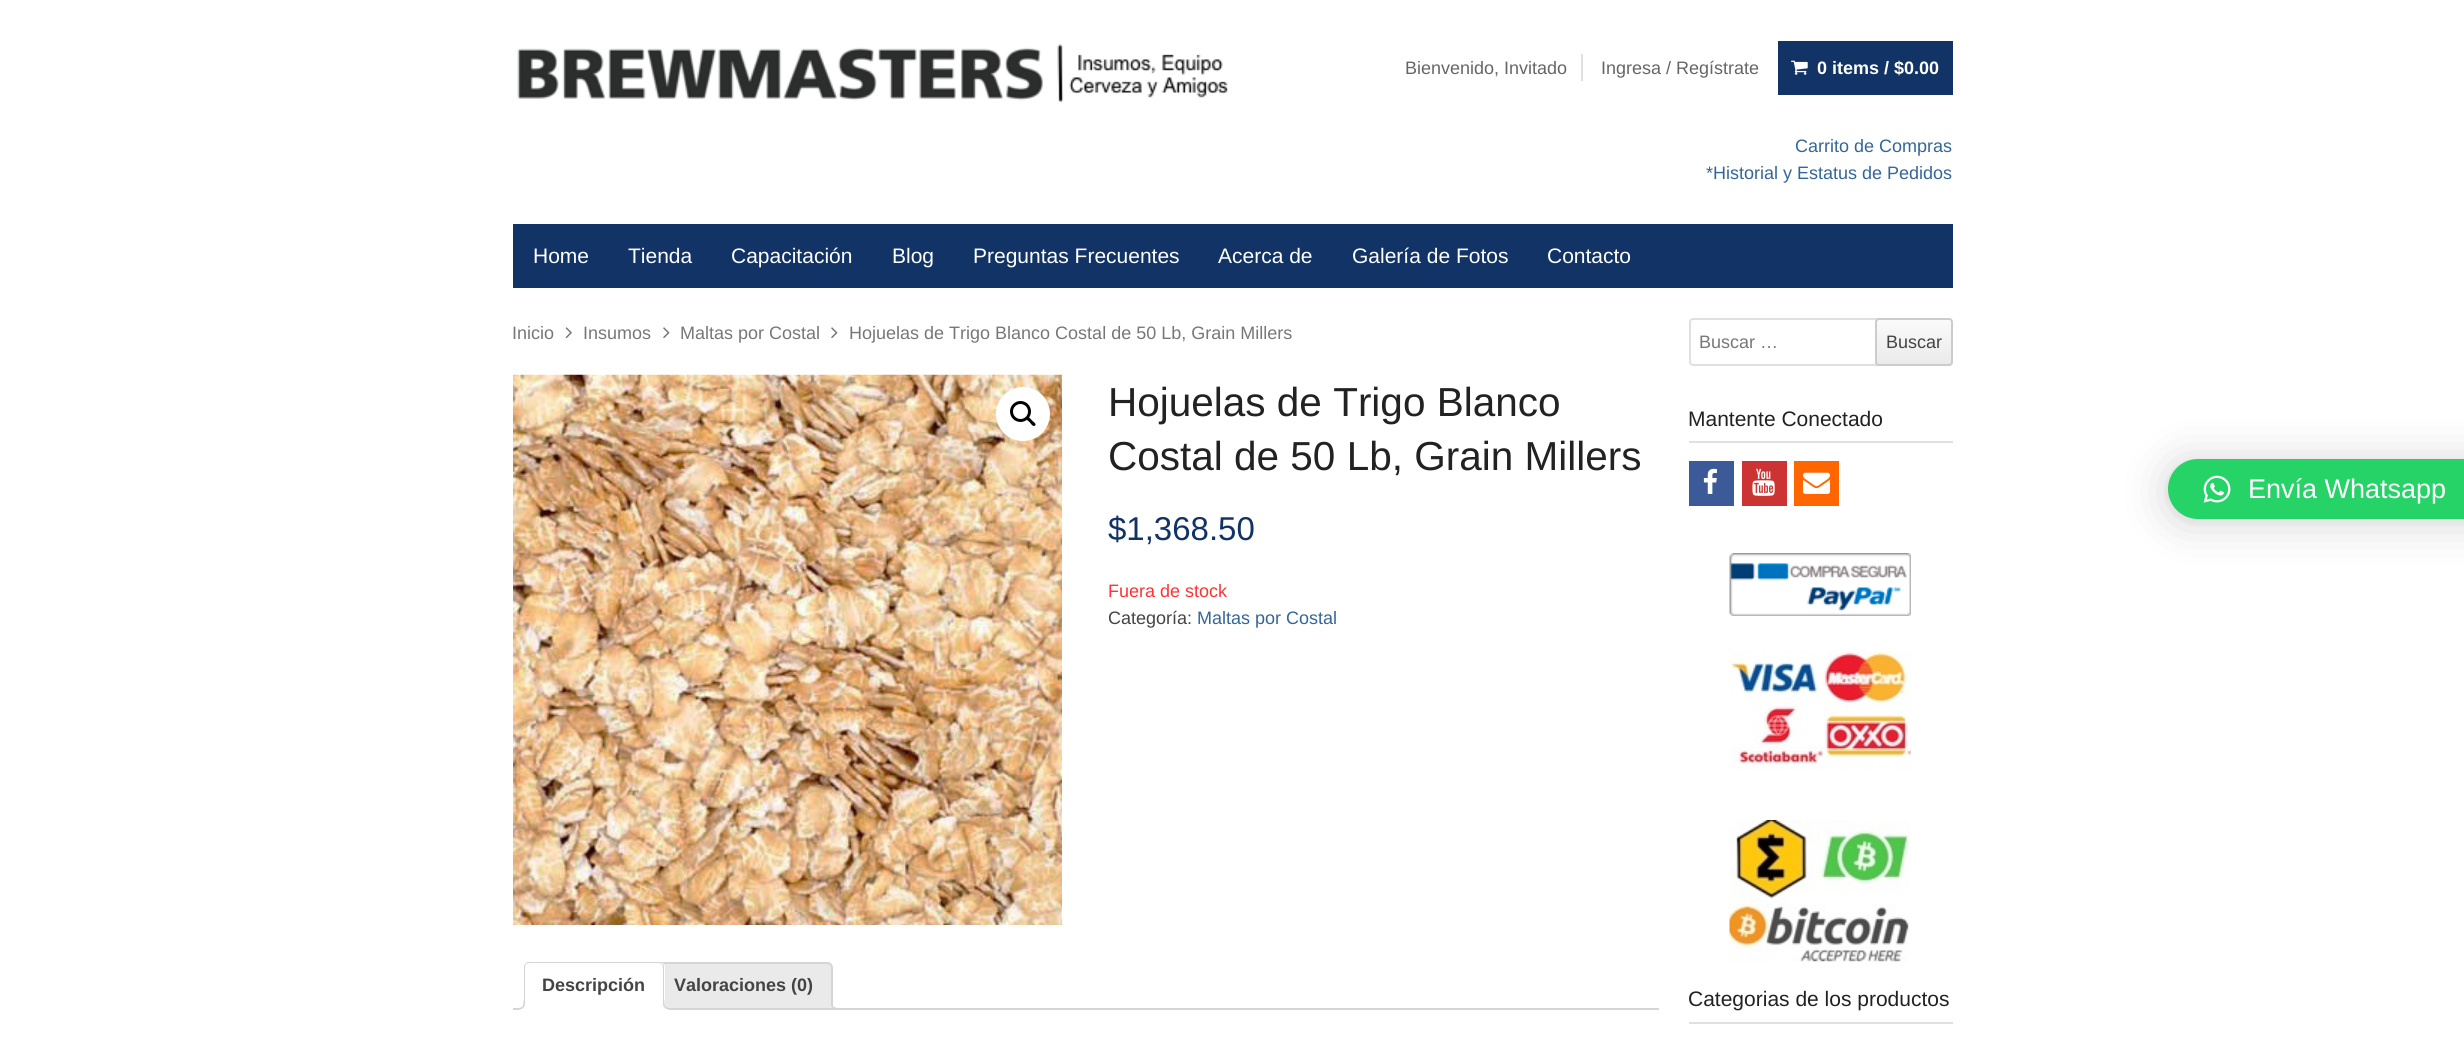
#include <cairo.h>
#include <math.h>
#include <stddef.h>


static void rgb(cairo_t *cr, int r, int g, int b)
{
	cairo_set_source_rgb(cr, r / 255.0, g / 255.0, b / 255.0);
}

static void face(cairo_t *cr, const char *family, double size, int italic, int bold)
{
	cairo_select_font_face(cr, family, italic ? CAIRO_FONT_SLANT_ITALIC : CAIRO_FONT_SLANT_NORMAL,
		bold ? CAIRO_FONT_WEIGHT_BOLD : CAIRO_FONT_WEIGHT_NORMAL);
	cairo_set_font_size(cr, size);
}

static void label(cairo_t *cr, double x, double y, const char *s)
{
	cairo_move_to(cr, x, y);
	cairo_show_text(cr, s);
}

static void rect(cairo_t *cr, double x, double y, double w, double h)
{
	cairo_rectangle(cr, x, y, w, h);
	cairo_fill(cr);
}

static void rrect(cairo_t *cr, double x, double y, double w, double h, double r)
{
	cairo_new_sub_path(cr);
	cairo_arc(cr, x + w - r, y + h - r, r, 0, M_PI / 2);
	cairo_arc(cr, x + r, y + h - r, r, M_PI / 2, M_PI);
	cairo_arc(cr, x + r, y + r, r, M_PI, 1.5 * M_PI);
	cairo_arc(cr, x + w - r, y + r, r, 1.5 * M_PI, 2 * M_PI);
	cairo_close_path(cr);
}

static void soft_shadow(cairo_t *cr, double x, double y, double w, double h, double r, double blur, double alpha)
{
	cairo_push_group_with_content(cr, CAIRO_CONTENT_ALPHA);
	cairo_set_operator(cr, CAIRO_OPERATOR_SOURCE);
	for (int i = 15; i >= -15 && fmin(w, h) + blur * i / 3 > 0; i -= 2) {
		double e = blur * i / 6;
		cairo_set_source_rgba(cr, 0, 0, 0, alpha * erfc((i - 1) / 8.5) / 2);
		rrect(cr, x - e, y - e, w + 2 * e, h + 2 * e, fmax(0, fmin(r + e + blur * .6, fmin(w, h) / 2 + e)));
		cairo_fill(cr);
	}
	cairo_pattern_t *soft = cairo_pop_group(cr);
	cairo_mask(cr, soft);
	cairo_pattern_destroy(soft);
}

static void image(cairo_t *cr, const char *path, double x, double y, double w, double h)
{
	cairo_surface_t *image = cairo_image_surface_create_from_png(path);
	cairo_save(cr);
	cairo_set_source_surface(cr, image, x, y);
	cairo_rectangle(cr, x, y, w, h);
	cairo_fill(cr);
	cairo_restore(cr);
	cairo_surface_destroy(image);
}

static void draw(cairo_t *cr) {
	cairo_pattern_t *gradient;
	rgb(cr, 255, 255, 255);
	cairo_paint(cr);
	rgb(cr, 224, 224, 224);
	rect(cr, 1581, 54, 2, 27);
	face(cr, "Liberation Sans", 18, 0, 0);
	rgb(cr, 102, 102, 102);
	label(cr, 1405, 74, "Bienvenido, Invitado");
	label(cr, 1601, 74, "Ingresa / Regístrate");
	rgb(cr, 17, 51, 102);
	rect(cr, 1778, 41, 175, 54);
	image(cr, "image0.png", 1791, 60, 17, 15);
	face(cr, "Liberation Sans", 18, 0, 1);
	rgb(cr, 255, 255, 255);
	label(cr, 1817, 74, "0 items / $0.00");
	image(cr, "image1.png", 517, 44, 711, 58);
	face(cr, "Liberation Sans", 18, 0, 0);
	rgb(cr, 51, 102, 153);
	label(cr, 1795, 152, "Carrito de Compras");
	label(cr, 1706, 179, "*Historial y Estatus de Pedidos");
	rgb(cr, 17, 51, 102);
	rect(cr, 513, 224, 1440, 64);
	face(cr, "Liberation Sans", 21, 0, 0);
	rgb(cr, 255, 255, 255);
	label(cr, 533, 263, "Home");
	label(cr, 628, 263, "Tienda");
	label(cr, 731, 263, "Capacitación");
	label(cr, 892, 263, "Blog");
	label(cr, 973, 263, "Preguntas Frecuentes");
	label(cr, 1218, 263, "Acerca de");
	label(cr, 1352, 263, "Galería de Fotos");
	label(cr, 1547, 263, "Contacto");
	face(cr, "Liberation Sans", 18, 0, 0);
	rgb(cr, 119, 119, 119);
	label(cr, 512, 339, "Inicio");
	image(cr, "image2.png", 565, 327, 7, 12);
	label(cr, 583, 339, "Insumos");
	image(cr, "image3.png", 663, 327, 7, 12);
	label(cr, 680, 339, "Maltas por Costal");
	image(cr, "image3.png", 831, 327, 7, 12);
	label(cr, 849, 339, "Hojuelas de Trigo Blanco Costal de 50 Lb, Grain Millers");
	image(cr, "image4.png", 513, 374, 549, 551);
	rgb(cr, 255, 255, 255);
	cairo_arc(cr, 1023, 414, 27, 0, 2 * M_PI);
	cairo_fill(cr);
	cairo_arc(cr, 1020.5, 411.5, 9, 0, 2 * M_PI);
	rgb(cr, 0, 0, 0);
	cairo_set_line_width(cr, 3);
	cairo_stroke(cr);
	cairo_new_path(cr);
	cairo_move_to(cr, 1026.5, 417.5);
	cairo_curve_to(cr, 1028.5, 415.5, 1031, 419.5, 1032, 420.5);
	cairo_curve_to(cr, 1033, 421.5, 1037, 424, 1035, 425.5);
	cairo_curve_to(cr, 1033.5, 427.5, 1030.5, 423.5, 1030, 422.5);
	cairo_curve_to(cr, 1029, 421.5, 1025, 419, 1026.5, 417.5);
	cairo_close_path(cr);
	cairo_fill(cr);
	face(cr, "Liberation Sans", 40.5, 0, 0);
	rgb(cr, 34, 34, 34);
	label(cr, 1108, 416, "Hojuelas de Trigo Blanco");
	label(cr, 1108, 470, "Costal de 50 Lb, Grain Millers");
	face(cr, "Liberation Sans", 33, 0, 0);
	rgb(cr, 17, 51, 102);
	label(cr, 1108, 540, "$1,368.50");
	face(cr, "Liberation Sans", 18, 0, 0);
	rgb(cr, 255, 51, 51);
	label(cr, 1108, 597, "Fuera de stock");
	rgb(cr, 68, 68, 68);
	label(cr, 1108, 624, "Categoría:");
	rgb(cr, 51, 102, 153);
	label(cr, 1197, 624, "Maltas por Costal");
	rgb(cr, 234, 234, 234);
	cairo_new_path(cr);
	cairo_move_to(cr, 662, 963);
	cairo_line_to(cr, 827, 963);
	cairo_curve_to(cr, 830, 963, 832, 965, 832, 968);
	cairo_line_to(cr, 832, 1009);
	cairo_line_to(cr, 657, 1009);
	cairo_line_to(cr, 657, 968);
	cairo_curve_to(cr, 657, 965, 659, 963, 662, 963);
	cairo_close_path(cr);
	cairo_fill_preserve(cr);
	rgb(cr, 213, 213, 213);
	cairo_set_line_width(cr, 2);
	cairo_stroke(cr);
	cairo_save(cr);
	cairo_rectangle(cr, 513, 962, 1146, 48);
	cairo_clip(cr);
	rgb(cr, 234, 234, 234);
	cairo_new_path(cr);
	cairo_move_to(cr, 828, 1004);
	cairo_curve_to(cr, 828, 1011.5, 829.5, 1013, 837, 1013);
	cairo_line_to(cr, 837, 1009.5);
	cairo_curve_to(cr, 834, 1009.5, 831.5, 1007, 831, 1004);
	cairo_close_path(cr);
	cairo_fill(cr);
	cairo_restore(cr);
	cairo_set_fill_rule(cr, CAIRO_FILL_RULE_EVEN_ODD);
	cairo_new_path(cr);
	cairo_move_to(cr, 831, 1000.5);
	cairo_line_to(cr, 840, 1000.5);
	cairo_line_to(cr, 840, 1009.5);
	cairo_curve_to(cr, 836, 1009.5, 831, 1009, 831, 1003.5);
	cairo_close_path(cr);
	cairo_move_to(cr, 832.5, 1000.5);
	cairo_line_to(cr, 840, 1000.5);
	cairo_line_to(cr, 840, 1008);
	cairo_curve_to(cr, 836.5, 1008, 832.5, 1008, 832.5, 1003.5);
	cairo_close_path(cr);
	cairo_fill(cr);
	rect(cr, 513, 1008, 1146, 2);
	rgb(cr, 255, 255, 255);
	cairo_new_path(cr);
	cairo_move_to(cr, 530, 962);
	cairo_line_to(cr, 659, 962);
	cairo_curve_to(cr, 662.5, 962, 665, 964.5, 665, 968);
	cairo_line_to(cr, 665, 1010);
	cairo_line_to(cr, 524, 1010);
	cairo_line_to(cr, 524, 968);
	cairo_curve_to(cr, 524, 964.5, 526.5, 962, 530, 962);
	cairo_close_path(cr);
	cairo_fill(cr);
	rgb(cr, 213, 213, 213);
	cairo_set_fill_rule(cr, CAIRO_FILL_RULE_WINDING);
	cairo_new_path(cr);
	cairo_move_to(cr, 530, 962);
	cairo_curve_to(cr, 528, 962, 526, 962, 526, 964);
	cairo_curve_to(cr, 527, 964, 528, 963, 530, 963);
	cairo_line_to(cr, 658, 963);
	cairo_curve_to(cr, 660, 963, 661, 964, 662, 964);
	cairo_curve_to(cr, 662, 962, 660, 962, 658, 962);
	cairo_close_path(cr);
	cairo_fill(cr);
	cairo_new_path(cr);
	cairo_move_to(cr, 664, 1009);
	cairo_line_to(cr, 664, 968);
	cairo_curve_to(cr, 664, 966, 664, 964, 662, 964);
	cairo_curve_to(cr, 662, 965, 663, 966, 663, 968);
	cairo_line_to(cr, 663, 1008);
	cairo_close_path(cr);
	cairo_fill(cr);
	rgb(cr, 255, 255, 255);
	cairo_new_path(cr);
	cairo_move_to(cr, 524, 1010);
	cairo_line_to(cr, 525, 1008);
	cairo_line_to(cr, 663, 1008);
	cairo_line_to(cr, 664, 1009);
	cairo_line_to(cr, 664, 1010);
	cairo_close_path(cr);
	cairo_fill(cr);
	rgb(cr, 213, 213, 213);
	cairo_new_path(cr);
	cairo_move_to(cr, 526, 964);
	cairo_curve_to(cr, 524, 964, 524, 966, 524, 968);
	cairo_line_to(cr, 524, 1009);
	cairo_line_to(cr, 525, 1008);
	cairo_line_to(cr, 525, 968);
	cairo_curve_to(cr, 525, 966, 526, 965, 526, 964);
	cairo_close_path(cr);
	cairo_fill(cr);
	face(cr, "Liberation Sans", 18, 0, 1);
	rgb(cr, 68, 68, 68);
	label(cr, 542, 991, "Descripción");
	cairo_save(cr);
	cairo_rectangle(cr, 513, 962, 1146, 48);
	cairo_clip(cr);
	rgb(cr, 255, 255, 255);
	cairo_new_path(cr);
	cairo_move_to(cr, 519, 1009.5);
	cairo_line_to(cr, 519, 1013);
	cairo_curve_to(cr, 526.5, 1013, 528, 1011.5, 528, 1004);
	cairo_line_to(cr, 525, 1004);
	cairo_curve_to(cr, 524.5, 1007, 522, 1009.5, 519, 1009.5);
	cairo_close_path(cr);
	cairo_fill(cr);
	cairo_restore(cr);
	rgb(cr, 213, 213, 213);
	cairo_set_fill_rule(cr, CAIRO_FILL_RULE_EVEN_ODD);
	cairo_new_path(cr);
	cairo_move_to(cr, 516, 1000.5);
	cairo_line_to(cr, 525, 1000.5);
	cairo_curve_to(cr, 525, 1008, 523.5, 1009.5, 516, 1009.5);
	cairo_close_path(cr);
	cairo_move_to(cr, 516, 1000.5);
	cairo_line_to(cr, 523.5, 1000.5);
	cairo_curve_to(cr, 523.5, 1007, 522.5, 1008, 516, 1008);
	cairo_close_path(cr);
	cairo_fill(cr);
	cairo_save(cr);
	cairo_set_fill_rule(cr, CAIRO_FILL_RULE_WINDING);
	cairo_rectangle(cr, 513, 962, 1146, 48);
	cairo_clip(cr);
	rgb(cr, 255, 255, 255);
	cairo_new_path(cr);
	cairo_move_to(cr, 660, 1004);
	cairo_curve_to(cr, 660, 1011.5, 661.5, 1013, 669, 1013);
	cairo_line_to(cr, 669, 1009.5);
	cairo_curve_to(cr, 666, 1009.5, 663.5, 1007, 663, 1004);
	cairo_close_path(cr);
	cairo_fill(cr);
	cairo_restore(cr);
	cairo_new_path(cr);
	cairo_move_to(cr, 663, 1000.5);
	cairo_line_to(cr, 672, 1000.5);
	cairo_line_to(cr, 672, 1009.5);
	cairo_curve_to(cr, 668, 1009.5, 663, 1009, 663, 1003.5);
	cairo_close_path(cr);
	cairo_move_to(cr, 664.5, 1000.5);
	cairo_line_to(cr, 672, 1000.5);
	cairo_line_to(cr, 672, 1008);
	cairo_curve_to(cr, 668.5, 1008, 664.5, 1008, 664.5, 1003.5);
	cairo_close_path(cr);
	cairo_fill(cr);
	rgb(cr, 68, 68, 68);
	label(cr, 674, 991, "Valoraciones (0)");
	rrect(cr, 1690, 319, 262, 46, 3);
	rgb(cr, 224, 224, 224);
	cairo_stroke(cr);
	face(cr, "Liberation Sans", 18, 0, 0);
	rgb(cr, 119, 119, 119);
	label(cr, 1699, 348, "Buscar …");
	cairo_save(cr);
	cairo_set_fill_rule(cr, CAIRO_FILL_RULE_WINDING);
	rrect(cr, 1875, 318, 78, 48, 4);
	cairo_clip(cr);
	gradient = cairo_pattern_create_linear(1914, 320, 1914, 365);
	cairo_pattern_add_color_stop_rgba(gradient, 0, 0.98, 0.98, 0.98, 1);
	cairo_pattern_add_color_stop_rgba(gradient, 1, 0.918, 0.918, 0.918, 1);
	cairo_set_source(cr, gradient);
	cairo_pattern_destroy(gradient);
	rect(cr, 1875, 320, 78, 45);
	cairo_restore(cr);
	rrect(cr, 1876, 319, 76, 46, 3);
	rgb(cr, 204, 204, 204);
	cairo_stroke(cr);
	rgb(cr, 68, 68, 68);
	label(cr, 1886, 348, "Buscar");
	rgb(cr, 224, 224, 224);
	rect(cr, 1689, 441, 264, 2);
	face(cr, "Liberation Sans", 21, 0, 0);
	rgb(cr, 34, 34, 34);
	label(cr, 1688, 426, "Mantente Conectado");
	rgb(cr, 60, 90, 152);
	rect(cr, 1689, 461, 45, 45);
	image(cr, "image5.png", 1703, 468, 14, 26);
	rgb(cr, 204, 51, 51);
	rect(cr, 1742, 461, 45, 45);
	image(cr, "image6.png", 1752, 468, 23, 28);
	rgb(cr, 255, 102, 0);
	rect(cr, 1794, 461, 45, 45);
	image(cr, "image7.png", 1803, 472, 27, 22);
	image(cr, "image8.png", 1729, 553, 182, 63);
	image(cr, "image9.png", 1730, 650, 181, 120);
	image(cr, "image10.png", 1729, 820, 181, 142);
	rgb(cr, 224, 224, 224);
	rect(cr, 1689, 1022, 264, 2);
	rgb(cr, 34, 34, 34);
	label(cr, 1688, 1006, "Categorias de los productos");
	rgb(cr, 0, 0, 0);
	soft_shadow(cr, 2168, 462, 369, 60, 30, 24, 0.16);
	soft_shadow(cr, 2168, 461, 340, 60, 30, 4.5, 0.06);
	rgb(cr, 37, 211, 102);
	rrect(cr, 2168, 459, 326, 60, 30);
	cairo_fill(cr);
	image(cr, "image11.png", 2203, 475, 28, 28);
	face(cr, "Liberation Sans", 27, 0, 0);
	rgb(cr, 255, 255, 255);
	label(cr, 2248, 498, "Envía Whatsapp");
}

int main(void) {
	cairo_surface_t *surface = cairo_image_surface_create(CAIRO_FORMAT_RGB24, 2464, 1059);
	cairo_t *cr = cairo_create(surface);
	cairo_font_options_t *options = cairo_font_options_create();
	cairo_font_options_set_hint_metrics(options, CAIRO_HINT_METRICS_OFF);
	cairo_font_options_set_hint_style(options, CAIRO_HINT_STYLE_NONE);
	cairo_set_font_options(cr, options);
	cairo_set_miter_limit(cr, 4);
	draw(cr);
	cairo_surface_write_to_png(surface, "render.png");
	cairo_font_options_destroy(options);
	cairo_destroy(cr);
	cairo_surface_destroy(surface);
	return 0;
}
